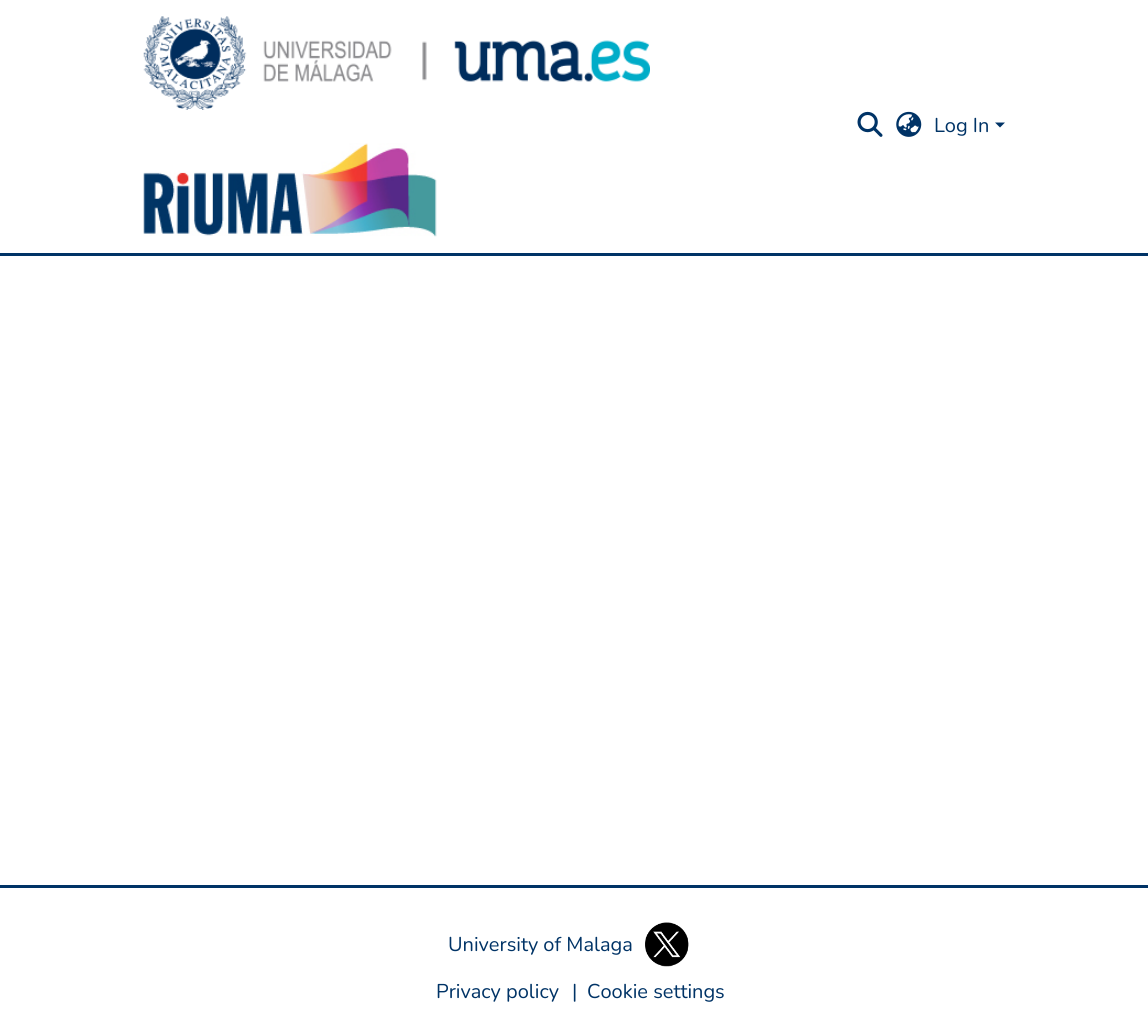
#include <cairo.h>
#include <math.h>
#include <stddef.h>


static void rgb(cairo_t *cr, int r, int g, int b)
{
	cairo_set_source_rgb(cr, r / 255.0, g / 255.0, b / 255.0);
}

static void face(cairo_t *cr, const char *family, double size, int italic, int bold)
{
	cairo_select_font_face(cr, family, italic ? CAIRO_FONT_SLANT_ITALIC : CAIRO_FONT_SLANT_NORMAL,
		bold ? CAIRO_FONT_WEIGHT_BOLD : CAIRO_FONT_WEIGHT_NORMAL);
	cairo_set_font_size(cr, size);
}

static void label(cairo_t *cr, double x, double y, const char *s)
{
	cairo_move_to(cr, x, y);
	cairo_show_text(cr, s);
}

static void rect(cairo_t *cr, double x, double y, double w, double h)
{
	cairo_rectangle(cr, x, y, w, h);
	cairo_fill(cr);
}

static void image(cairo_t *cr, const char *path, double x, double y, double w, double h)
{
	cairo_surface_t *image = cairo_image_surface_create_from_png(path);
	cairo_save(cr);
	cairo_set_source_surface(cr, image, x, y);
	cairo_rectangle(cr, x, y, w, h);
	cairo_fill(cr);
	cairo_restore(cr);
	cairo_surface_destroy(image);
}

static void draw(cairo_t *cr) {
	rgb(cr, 255, 255, 255);
	cairo_paint(cr);
	rgb(cr, 0, 51, 102);
	rect(cr, 0, 253, 1148, 3);
	image(cr, "image0.png", 143, 16, 507, 94);
	image(cr, "image1.png", 143, 143, 294, 94);
	image(cr, "image2.png", 857, 111, 26, 26);
	image(cr, "image3.png", 896, 111, 26, 26);
	face(cr, "Nunito", 20, 0, 0);
	label(cr, 934, 132, "Log In");
	cairo_new_path(cr);
	cairo_move_to(cr, 995, 122.5);
	cairo_line_to(cr, 1005, 122.5);
	cairo_line_to(cr, 1000, 127.5);
	cairo_close_path(cr);
	cairo_fill(cr);
	rect(cr, 0, 885, 1148, 3);
	label(cr, 448, 951, "University of Malaga");
	image(cr, "image4.png", 645, 922, 44, 45);
	label(cr, 436, 998, "Privacy policy");
	label(cr, 572, 998, "|");
	label(cr, 587, 998, "Cookie settings");
}

int main(void) {
	cairo_surface_t *surface = cairo_image_surface_create(CAIRO_FORMAT_RGB24, 1148, 1030);
	cairo_t *cr = cairo_create(surface);
	cairo_font_options_t *options = cairo_font_options_create();
	cairo_font_options_set_hint_metrics(options, CAIRO_HINT_METRICS_OFF);
	cairo_font_options_set_hint_style(options, CAIRO_HINT_STYLE_NONE);
	cairo_set_font_options(cr, options);
	cairo_set_miter_limit(cr, 4);
	draw(cr);
	cairo_surface_write_to_png(surface, "render.png");
	cairo_font_options_destroy(options);
	cairo_destroy(cr);
	cairo_surface_destroy(surface);
	return 0;
}
